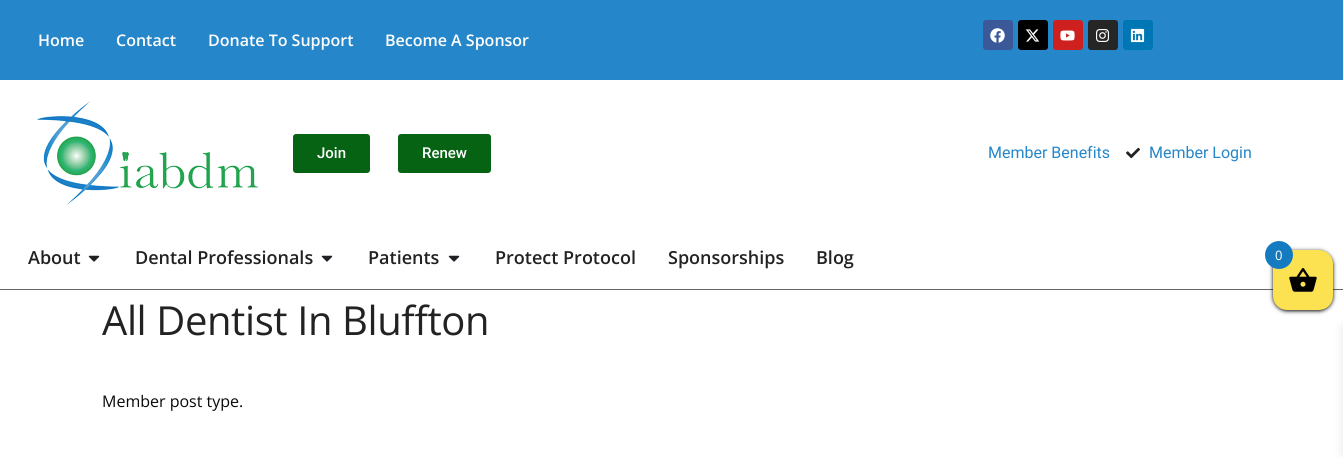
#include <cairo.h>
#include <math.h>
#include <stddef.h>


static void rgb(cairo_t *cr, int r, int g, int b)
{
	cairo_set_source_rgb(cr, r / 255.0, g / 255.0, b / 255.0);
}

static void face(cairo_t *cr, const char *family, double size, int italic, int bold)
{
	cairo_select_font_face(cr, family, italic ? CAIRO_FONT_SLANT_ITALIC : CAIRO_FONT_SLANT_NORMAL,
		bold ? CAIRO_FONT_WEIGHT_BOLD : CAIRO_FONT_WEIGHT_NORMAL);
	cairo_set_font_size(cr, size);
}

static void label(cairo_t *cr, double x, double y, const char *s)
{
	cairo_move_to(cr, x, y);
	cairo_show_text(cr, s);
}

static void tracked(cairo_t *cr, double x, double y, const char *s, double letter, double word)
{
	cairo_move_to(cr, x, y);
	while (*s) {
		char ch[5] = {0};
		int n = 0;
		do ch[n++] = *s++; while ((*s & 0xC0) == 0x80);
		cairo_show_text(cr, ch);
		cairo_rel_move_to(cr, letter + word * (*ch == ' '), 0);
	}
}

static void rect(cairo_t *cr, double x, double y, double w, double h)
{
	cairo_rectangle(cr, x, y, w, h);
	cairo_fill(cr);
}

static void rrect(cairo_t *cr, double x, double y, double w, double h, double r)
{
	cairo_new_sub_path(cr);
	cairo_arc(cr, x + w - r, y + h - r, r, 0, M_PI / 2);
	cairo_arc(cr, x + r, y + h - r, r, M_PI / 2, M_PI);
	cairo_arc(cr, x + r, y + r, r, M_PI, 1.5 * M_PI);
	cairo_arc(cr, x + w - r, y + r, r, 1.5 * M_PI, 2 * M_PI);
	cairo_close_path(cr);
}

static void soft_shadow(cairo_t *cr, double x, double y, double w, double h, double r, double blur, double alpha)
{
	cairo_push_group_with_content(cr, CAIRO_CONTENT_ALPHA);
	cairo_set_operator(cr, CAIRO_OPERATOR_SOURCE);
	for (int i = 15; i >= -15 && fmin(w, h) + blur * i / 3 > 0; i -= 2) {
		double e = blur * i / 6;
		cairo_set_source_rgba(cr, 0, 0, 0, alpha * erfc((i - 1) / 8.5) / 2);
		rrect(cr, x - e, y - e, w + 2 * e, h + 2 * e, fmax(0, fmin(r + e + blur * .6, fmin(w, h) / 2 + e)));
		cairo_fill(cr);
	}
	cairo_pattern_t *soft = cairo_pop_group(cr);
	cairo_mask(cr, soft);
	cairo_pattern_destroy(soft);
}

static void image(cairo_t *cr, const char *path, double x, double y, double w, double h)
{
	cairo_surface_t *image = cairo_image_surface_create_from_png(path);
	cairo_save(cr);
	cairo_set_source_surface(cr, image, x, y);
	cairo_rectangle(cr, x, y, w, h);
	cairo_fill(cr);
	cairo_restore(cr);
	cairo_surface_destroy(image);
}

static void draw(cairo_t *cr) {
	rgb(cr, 255, 255, 255);
	cairo_paint(cr);
	rgb(cr, 37, 134, 202);
	rect(cr, 0, 0, 1343, 80);
	face(cr, "Open Sans SemiBold", 16, 0, 0);
	rgb(cr, 255, 255, 255);
	label(cr, 38, 46, "Home");
	label(cr, 116, 46, "Contact");
	label(cr, 208, 46, "Donate To Support");
	label(cr, 385, 46, "Become A Sponsor");
	rgb(cr, 59, 89, 152);
	rrect(cr, 983, 20, 30, 30, 3);
	cairo_fill(cr);
	image(cr, "image0.png", 990, 28, 15, 15);
	rgb(cr, 0, 0, 0);
	rrect(cr, 1018, 20, 30, 30, 3);
	cairo_fill(cr);
	image(cr, "image1.png", 1025, 29, 15, 13);
	rgb(cr, 205, 32, 31);
	rrect(cr, 1053, 20, 30, 30, 3);
	cairo_fill(cr);
	image(cr, "image2.png", 1060, 30, 15, 11);
	rgb(cr, 38, 38, 38);
	rrect(cr, 1088, 20, 30, 30, 3);
	cairo_fill(cr);
	image(cr, "image3.png", 1096, 29, 14, 13);
	rgb(cr, 0, 119, 181);
	rrect(cr, 1123, 20, 30, 30, 3);
	cairo_fill(cr);
	image(cr, "image4.png", 1130, 28, 15, 15);
	image(cr, "image5.png", 37, 101, 221, 105);
	rgb(cr, 7, 99, 20);
	rrect(cr, 293, 134, 77, 39, 3);
	cairo_fill(cr);
	face(cr, "Roboto Medium", 15, 0, 0);
	rgb(cr, 255, 255, 255);
	label(cr, 317, 158, "Join");
	rgb(cr, 7, 99, 20);
	rrect(cr, 398, 134, 93, 39, 3);
	cairo_fill(cr);
	rgb(cr, 255, 255, 255);
	label(cr, 422, 158, "Renew");
	face(cr, "Roboto", 16, 0, 0);
	rgb(cr, 37, 134, 202);
	label(cr, 988, 158, "Member Benefits");
	image(cr, "image6.png", 1126, 147, 14, 12);
	label(cr, 1149, 158, "Member Login");
	rgb(cr, 102, 102, 102);
	rect(cr, 0, 289, 1343, 1);
	face(cr, "Open Sans SemiBold", 18, 0, 0);
	rgb(cr, 34, 34, 34);
	label(cr, 28, 264, "About");
	image(cr, "image7.png", 88, 255, 12, 7);
	label(cr, 135, 264, "Dental Professionals");
	image(cr, "image7.png", 321, 255, 12, 7);
	label(cr, 368, 264, "Patients");
	image(cr, "image7.png", 448, 255, 12, 7);
	label(cr, 495, 264, "Protect Protocol");
	label(cr, 668, 264, "Sponsorships");
	label(cr, 816, 264, "Blog");
	rgb(cr, 0, 0, 0);
	soft_shadow(cr, 1273, 251, 60, 60, 14, 2, 1);
	rgb(cr, 252, 226, 80);
	rrect(cr, 1273, 250, 60, 60, 14);
	cairo_fill(cr);
	image(cr, "image8.png", 1289, 268, 28, 24);
	rgb(cr, 21, 123, 192);
	cairo_arc(cr, 1279, 255, 14, 0, 2 * M_PI);
	cairo_fill(cr);
	face(cr, "Open Sans", 13, 0, 0);
	rgb(cr, 255, 255, 255);
	label(cr, 1275, 260, "0");
	rgb(cr, 0, 0, 0);
	soft_shadow(cr, 1343, 327, 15, 127, 0, 5, 0.1);
	face(cr, "Open Sans", 40, 0, 0);
	rgb(cr, 34, 34, 34);
	tracked(cr, 102, 335, "All Dentist In Bluffton", -0.4, 0);
	face(cr, "Open Sans", 16, 0, 0);
	rgb(cr, 9, 9, 9);
	label(cr, 102, 407, "Member post type.");
}

int main(void) {
	cairo_surface_t *surface = cairo_image_surface_create(CAIRO_FORMAT_RGB24, 1343, 459);
	cairo_t *cr = cairo_create(surface);
	cairo_font_options_t *options = cairo_font_options_create();
	cairo_font_options_set_hint_metrics(options, CAIRO_HINT_METRICS_OFF);
	cairo_font_options_set_hint_style(options, CAIRO_HINT_STYLE_NONE);
	cairo_set_font_options(cr, options);
	cairo_set_miter_limit(cr, 4);
	draw(cr);
	cairo_surface_write_to_png(surface, "render.png");
	cairo_font_options_destroy(options);
	cairo_destroy(cr);
	cairo_surface_destroy(surface);
	return 0;
}
